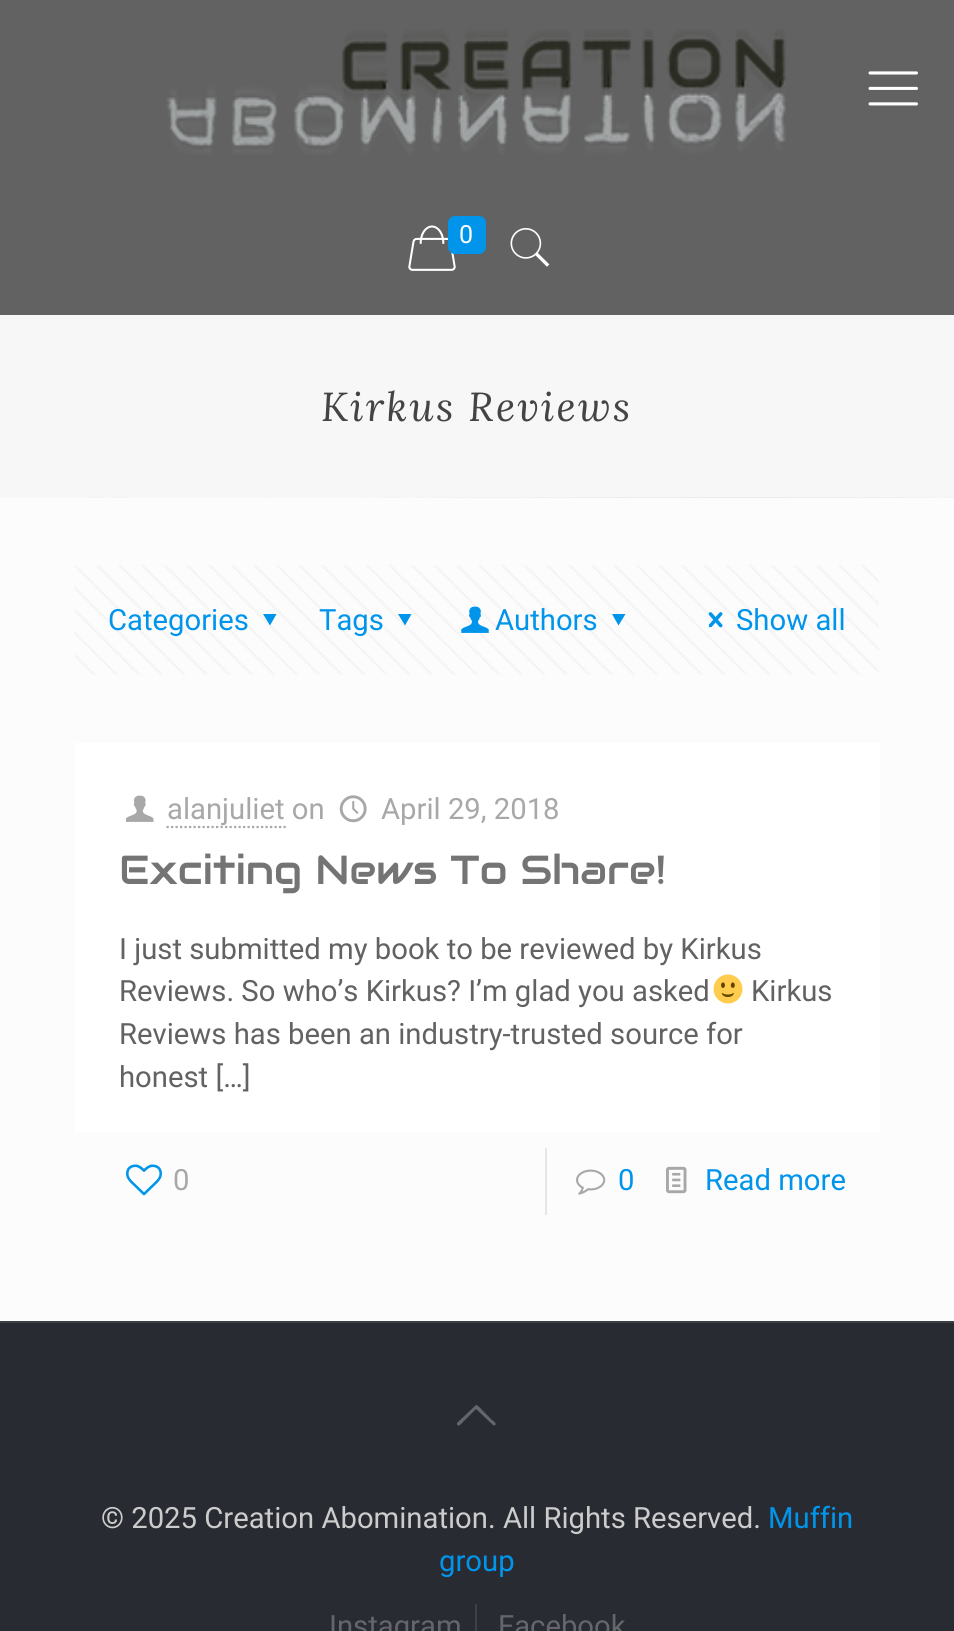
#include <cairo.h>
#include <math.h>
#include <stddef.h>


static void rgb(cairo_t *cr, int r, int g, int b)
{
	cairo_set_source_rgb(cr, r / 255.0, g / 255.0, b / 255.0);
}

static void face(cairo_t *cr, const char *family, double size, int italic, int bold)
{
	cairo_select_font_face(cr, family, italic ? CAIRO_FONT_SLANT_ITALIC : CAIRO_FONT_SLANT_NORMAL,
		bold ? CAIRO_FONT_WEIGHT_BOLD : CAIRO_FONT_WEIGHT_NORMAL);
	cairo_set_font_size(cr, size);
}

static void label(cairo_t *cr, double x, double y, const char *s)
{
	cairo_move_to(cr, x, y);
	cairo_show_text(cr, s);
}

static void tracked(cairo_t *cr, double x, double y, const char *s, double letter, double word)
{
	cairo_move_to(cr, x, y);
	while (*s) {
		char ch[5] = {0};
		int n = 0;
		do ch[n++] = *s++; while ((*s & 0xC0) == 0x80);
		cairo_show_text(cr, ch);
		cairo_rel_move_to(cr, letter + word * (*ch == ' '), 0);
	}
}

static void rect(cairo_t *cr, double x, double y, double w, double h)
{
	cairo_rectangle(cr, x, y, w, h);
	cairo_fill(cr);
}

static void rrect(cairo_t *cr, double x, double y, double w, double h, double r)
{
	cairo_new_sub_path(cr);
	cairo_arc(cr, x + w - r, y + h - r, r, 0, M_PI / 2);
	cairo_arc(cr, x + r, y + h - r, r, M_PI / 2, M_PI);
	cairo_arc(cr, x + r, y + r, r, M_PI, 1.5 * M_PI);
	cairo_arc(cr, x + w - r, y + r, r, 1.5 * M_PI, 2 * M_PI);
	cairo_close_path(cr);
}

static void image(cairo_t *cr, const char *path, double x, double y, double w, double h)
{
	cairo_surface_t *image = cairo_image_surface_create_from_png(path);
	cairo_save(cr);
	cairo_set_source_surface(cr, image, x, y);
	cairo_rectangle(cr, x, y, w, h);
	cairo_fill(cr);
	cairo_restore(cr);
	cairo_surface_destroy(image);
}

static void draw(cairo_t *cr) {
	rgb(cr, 252, 252, 252);
	cairo_paint(cr);
	image(cr, "image0.png", 0, 497, 954, 1);
	rgb(cr, 98, 98, 98);
	rect(cr, 0, 0, 954, 315);
	image(cr, "image1.png", 166, 29, 620, 126);
	image(cr, "image2.png", 868, 71, 50, 35);
	image(cr, "image3.png", 408, 225, 48, 46);
	rgb(cr, 0, 149, 235);
	rrect(cr, 448, 216, 38, 38, 7);
	cairo_fill(cr);
	face(cr, "Roboto", 25, 0, 0);
	rgb(cr, 255, 255, 255);
	label(cr, 459, 243, "0");
	image(cr, "image4.png", 510, 228, 40, 39);
	rgb(cr, 247, 247, 247);
	rect(cr, 0, 315, 954, 182);
	face(cr, "Lora", 40.5, 1, 0);
	rgb(cr, 68, 68, 68);
	tracked(cr, 321, 421, "Kirkus Reviews", 2.25, 0);
	image(cr, "image5.png", 75, 565, 804, 110);
	face(cr, "Roboto", 29.25, 0, 0);
	rgb(cr, 0, 149, 235);
	label(cr, 108, 630, "Categories");
	cairo_new_path(cr);
	cairo_move_to(cr, 276.5, 614);
	cairo_line_to(cr, 270, 625.5);
	cairo_line_to(cr, 263, 614);
	cairo_close_path(cr);
	cairo_fill(cr);
	label(cr, 319, 630, "Tags");
	cairo_new_path(cr);
	cairo_move_to(cr, 411.5, 614);
	cairo_line_to(cr, 405, 625.5);
	cairo_line_to(cr, 398, 614);
	cairo_close_path(cr);
	cairo_fill(cr);
	image(cr, "image6.png", 461, 606, 28, 27);
	label(cr, 495, 630, "Authors");
	cairo_new_path(cr);
	cairo_move_to(cr, 625.5, 614);
	cairo_line_to(cr, 618.5, 625.5);
	cairo_line_to(cr, 612, 614);
	cairo_close_path(cr);
	cairo_fill(cr);
	image(cr, "image7.png", 708, 612, 15, 16);
	label(cr, 736, 630, "Show all");
	rgb(cr, 255, 255, 255);
	rect(cr, 74, 743, 806, 389);
	image(cr, "image8.png", 126, 795, 28, 27);
	cairo_new_path(cr);
	cairo_move_to(cr, 166.5, 827);
	cairo_line_to(cr, 286, 827);
	rgb(cr, 168, 168, 168);
	cairo_set_line_width(cr, 2.2);
	cairo_set_dash(cr, (double[]){2.25, 2.25}, 2, 0);
	cairo_stroke(cr);
	label(cr, 167, 819, "alanjuliet on");
	image(cr, "image9.png", 339, 795, 28, 28);
	label(cr, 381, 819, "April 29, 2018");
	face(cr, "Audiowide", 40.5, 0, 0);
	rgb(cr, 116, 116, 116);
	label(cr, 119, 884, "Exciting News To Share!");
	face(cr, "Roboto", 29.25, 0, 0);
	rgb(cr, 98, 98, 98);
	label(cr, 119, 959, "I just submitted my book to be reviewed by Kirkus");
	label(cr, 119, 1001, "Reviews. So who’s Kirkus? I’m glad you asked");
	image(cr, "image10.png", 713, 974, 30, 30);
	label(cr, 751, 1001, "Kirkus");
	label(cr, 119, 1044, "Reviews has been an industry-trusted source for");
	label(cr, 119, 1087, "honest […]");
	image(cr, "image11.png", 126, 1164, 36, 32);
	rgb(cr, 168, 168, 168);
	label(cr, 173, 1190, "0");
	rgb(cr, 230, 230, 230);
	rect(cr, 545, 1148, 2, 67);
	image(cr, "image12.png", 576, 1169, 30, 26);
	rgb(cr, 0, 149, 235);
	label(cr, 618, 1190, "0");
	image(cr, "image13.png", 666, 1166, 21, 28);
	label(cr, 705, 1190, "Read more");
	rgb(cr, 41, 43, 51);
	rect(cr, 0, 1323, 954, 308);
	rgb(cr, 62, 64, 71);
	rect(cr, 0, 1321, 954, 2);
	rgb(cr, 101, 102, 108);
	cairo_new_path(cr);
	cairo_move_to(cr, 493, 1425);
	cairo_line_to(cr, 476, 1409);
	cairo_line_to(cr, 462.5, 1422.5);
	cairo_curve_to(cr, 461.5, 1423.5, 458.5, 1427.5, 457, 1424.5);
	cairo_line_to(cr, 457, 1423);
	cairo_line_to(cr, 476, 1405);
	cairo_curve_to(cr, 477.5, 1404.5, 482.5, 1410.5, 483, 1411);
	cairo_line_to(cr, 492, 1420);
	cairo_curve_to(cr, 492.5, 1420, 498.5, 1424.5, 494, 1425.5);
	cairo_close_path(cr);
	cairo_fill(cr);
	rgb(cr, 204, 204, 204);
	label(cr, 101, 1528, "© 2025 Creation Abomination. All Rights Reserved.");
	rgb(cr, 0, 149, 235);
	label(cr, 768, 1528, "Muffin");
	label(cr, 439, 1571, "group");
	rgb(cr, 62, 64, 71);
	rect(cr, 475, 1604, 2, 27);
	rgb(cr, 101, 102, 108);
	label(cr, 329, 1636, "Instagram");
	label(cr, 498, 1636, "Facebook");
}

int main(void) {
	cairo_surface_t *surface = cairo_image_surface_create(CAIRO_FORMAT_RGB24, 954, 1631);
	cairo_t *cr = cairo_create(surface);
	cairo_font_options_t *options = cairo_font_options_create();
	cairo_font_options_set_hint_metrics(options, CAIRO_HINT_METRICS_OFF);
	cairo_font_options_set_hint_style(options, CAIRO_HINT_STYLE_NONE);
	cairo_set_font_options(cr, options);
	cairo_set_miter_limit(cr, 4);
	draw(cr);
	cairo_surface_write_to_png(surface, "render.png");
	cairo_font_options_destroy(options);
	cairo_destroy(cr);
	cairo_surface_destroy(surface);
	return 0;
}
